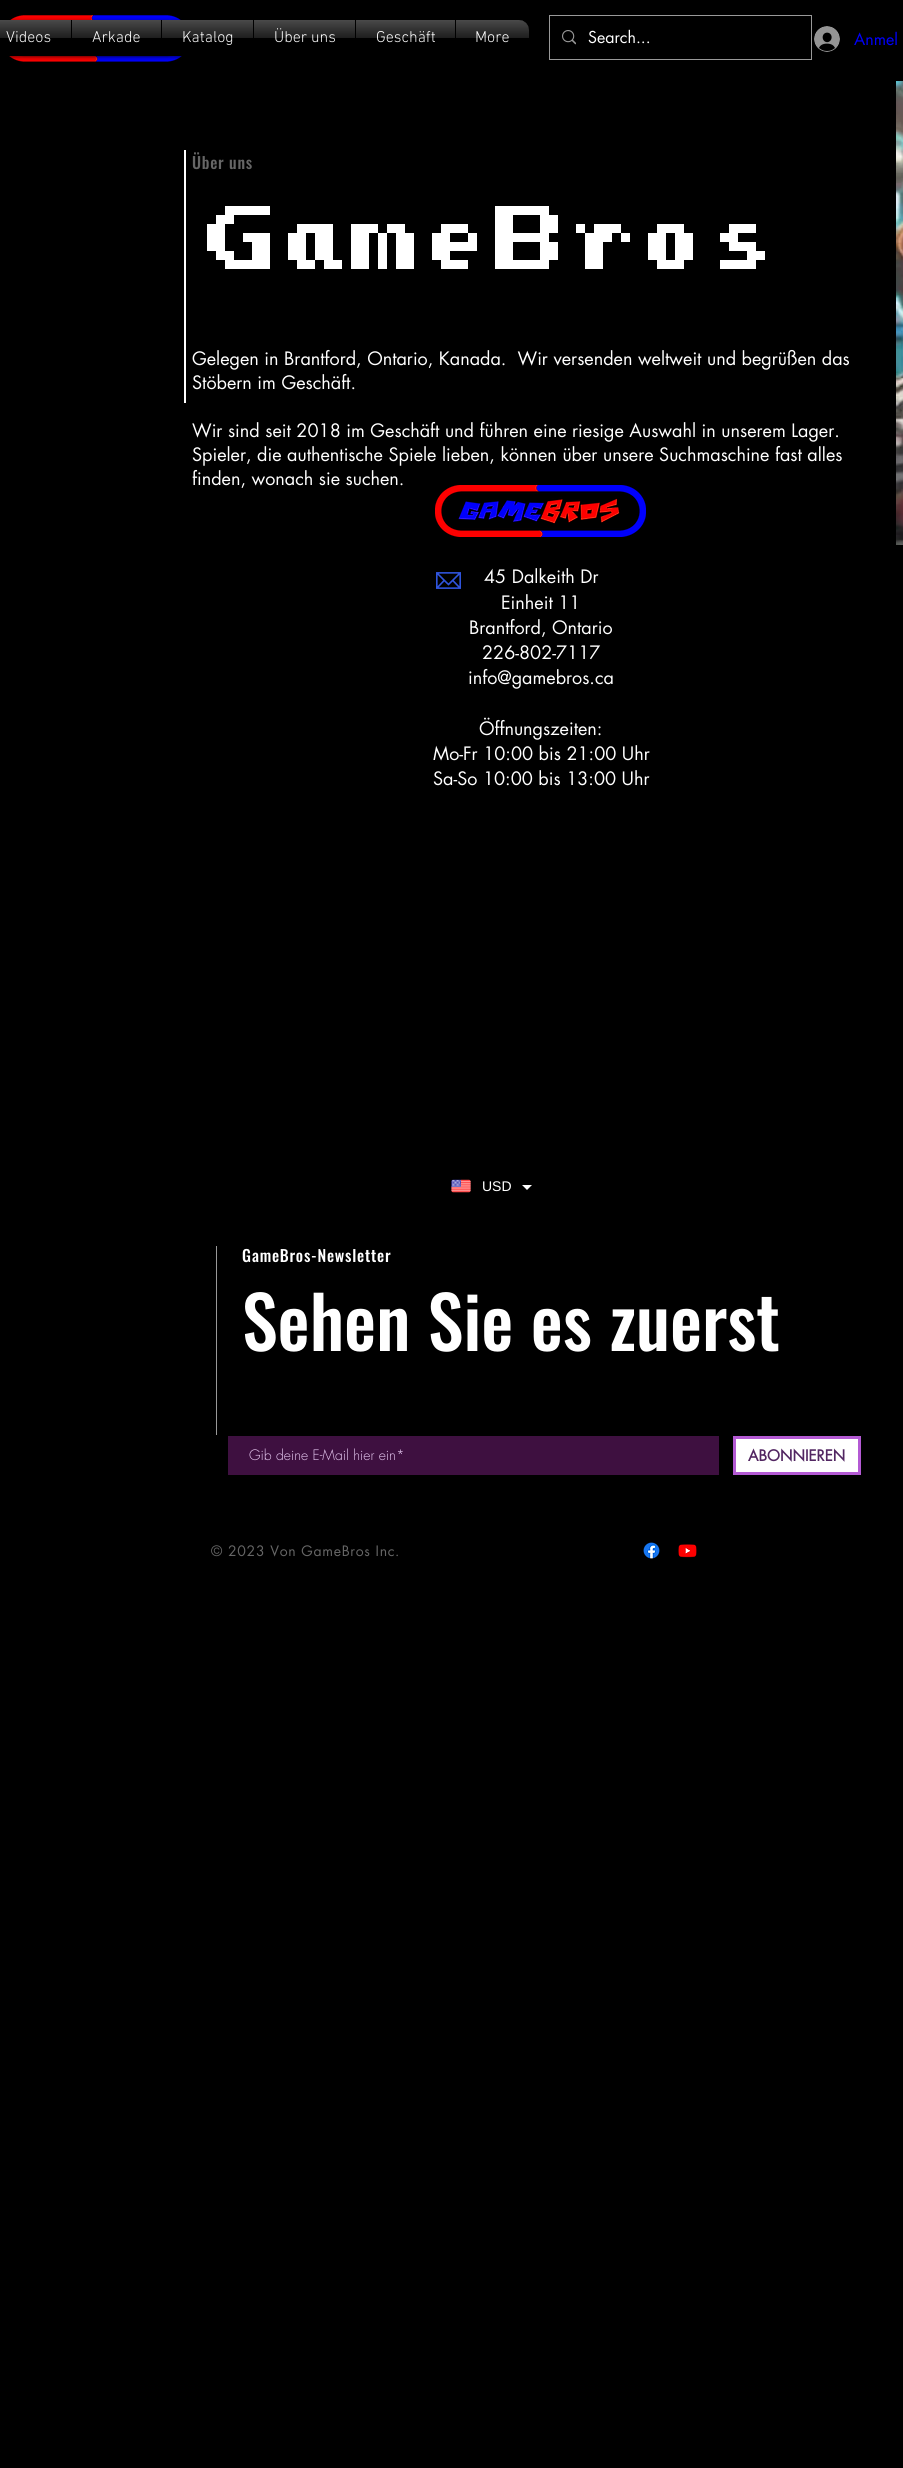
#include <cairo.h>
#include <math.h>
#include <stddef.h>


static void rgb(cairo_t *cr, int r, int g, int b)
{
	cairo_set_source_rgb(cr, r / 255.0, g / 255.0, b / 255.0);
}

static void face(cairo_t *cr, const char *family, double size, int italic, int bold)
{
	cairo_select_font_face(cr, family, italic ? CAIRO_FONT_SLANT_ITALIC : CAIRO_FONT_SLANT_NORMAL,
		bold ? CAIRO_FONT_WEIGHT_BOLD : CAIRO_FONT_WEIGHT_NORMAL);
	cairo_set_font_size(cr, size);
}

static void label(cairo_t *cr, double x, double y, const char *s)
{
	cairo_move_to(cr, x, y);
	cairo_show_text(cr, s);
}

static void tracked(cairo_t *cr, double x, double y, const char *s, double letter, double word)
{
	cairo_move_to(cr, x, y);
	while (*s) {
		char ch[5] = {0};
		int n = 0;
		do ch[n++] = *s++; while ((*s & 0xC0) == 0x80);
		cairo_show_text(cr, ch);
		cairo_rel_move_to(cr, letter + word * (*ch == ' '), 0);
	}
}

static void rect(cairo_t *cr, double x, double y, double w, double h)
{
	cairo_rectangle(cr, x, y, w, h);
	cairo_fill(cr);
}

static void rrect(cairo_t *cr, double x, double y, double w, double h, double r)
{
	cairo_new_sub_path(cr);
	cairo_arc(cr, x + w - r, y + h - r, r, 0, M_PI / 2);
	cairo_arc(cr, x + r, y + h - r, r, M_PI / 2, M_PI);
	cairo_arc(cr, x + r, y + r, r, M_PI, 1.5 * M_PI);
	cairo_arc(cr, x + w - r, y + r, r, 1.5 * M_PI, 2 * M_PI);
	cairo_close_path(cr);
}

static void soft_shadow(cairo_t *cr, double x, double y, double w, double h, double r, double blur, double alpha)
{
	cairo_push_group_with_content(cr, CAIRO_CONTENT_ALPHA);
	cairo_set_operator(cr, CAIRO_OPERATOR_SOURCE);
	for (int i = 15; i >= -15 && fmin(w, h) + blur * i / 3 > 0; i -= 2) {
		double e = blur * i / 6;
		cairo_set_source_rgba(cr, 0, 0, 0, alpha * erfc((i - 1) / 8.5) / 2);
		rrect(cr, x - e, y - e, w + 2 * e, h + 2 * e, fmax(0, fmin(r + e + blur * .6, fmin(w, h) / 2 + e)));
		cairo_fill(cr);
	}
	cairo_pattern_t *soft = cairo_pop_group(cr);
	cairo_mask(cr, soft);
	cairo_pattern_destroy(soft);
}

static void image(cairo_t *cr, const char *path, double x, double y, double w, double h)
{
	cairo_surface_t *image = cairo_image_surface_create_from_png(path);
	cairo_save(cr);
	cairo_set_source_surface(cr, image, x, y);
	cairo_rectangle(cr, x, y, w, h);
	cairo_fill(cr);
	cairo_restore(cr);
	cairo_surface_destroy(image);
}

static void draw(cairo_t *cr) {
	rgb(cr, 0, 0, 0);
	cairo_paint(cr);
	image(cr, "image0.png", 9, 15, 173, 47);
	soft_shadow(cr, -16, 21, 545, 36, 10, 2, 0.6);
	image(cr, "image1.png", 519, 20, 10, 10);
	rgb(cr, 0, 0, 0);
	rect(cr, 9, 20, 173, 36);
	face(cr, "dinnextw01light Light", 16, 0, 0);
	rgb(cr, 255, 255, 255);
	label(cr, 6, 42, "Videos");
	image(cr, "image2.png", 0, 20, 71, 22);
	label(cr, 92, 42, "Arkade");
	image(cr, "image3.png", 72, 20, 89, 22);
	label(cr, 182, 42, "Katalog");
	image(cr, "image4.png", 162, 20, 91, 25);
	label(cr, 274, 42, "Über uns");
	image(cr, "image5.png", 254, 20, 101, 22);
	label(cr, 376, 42, "Geschäft");
	image(cr, "image6.png", 356, 20, 99, 22);
	rgb(cr, 0, 0, 0);
	cairo_new_path(cr);
	cairo_move_to(cr, 455, 20);
	cairo_line_to(cr, 519, 20);
	cairo_curve_to(cr, 524.5, 20, 529, 24.5, 529, 30);
	cairo_line_to(cr, 529, 46);
	cairo_curve_to(cr, 529, 51.5, 524.5, 56, 519, 56);
	cairo_line_to(cr, 455, 56);
	cairo_close_path(cr);
	cairo_fill(cr);
	rgb(cr, 255, 255, 255);
	label(cr, 475, 42, "More");
	image(cr, "image7.png", 456, 20, 73, 22);
	cairo_rectangle(cr, 549.5, 15.5, 262, 44);
	rgb(cr, 153, 153, 153);
	cairo_set_line_width(cr, 1);
	cairo_stroke(cr);
	image(cr, "image8.png", 562, 30, 14, 15);
	face(cr, "futura", 16, 0, 0);
	rgb(cr, 255, 255, 255);
	label(cr, 588, 43, "Search...");
	image(cr, "image9.png", 814, 26, 26, 26);
	rgb(cr, 0, 0, 255);
	label(cr, 854, 45, "Anmel");
	rgb(cr, 255, 255, 255);
	rect(cr, 184, 150, 2, 253);
	face(cr, "Oswald Medium", 16, 0, 0);
	rgb(cr, 102, 102, 102);
	tracked(cr, 192, 169, "Über uns", 0.75, 0);
	image(cr, "image10.png", 896, 81, 7, 464);
	face(cr, "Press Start", 72, 0, 0);
	rgb(cr, 255, 255, 255);
	label(cr, 207, 269, "GameBros");
	face(cr, "futura", 18, 0, 0);
	label(cr, 192, 365, "Gelegen in Brantford, Ontario, Kanada.  Wir versenden weltweit und begrüßen das");
	label(cr, 192, 389, "Stöbern im Geschäft.");
	label(cr, 192, 437, "Wir sind seit 2018 im Geschäft und führen eine riesige Auswahl in unserem Lager.");
	label(cr, 192, 461, "Spieler, die authentische Spiele lieben, können über unsere Suchmaschine fast alles");
	label(cr, 192, 485, "finden, wonach sie suchen.");
	label(cr, 484, 583, "45 Dalkeith Dr");
	label(cr, 501, 609, "Einheit 11");
	label(cr, 469, 634, "Brantford, Ontario");
	label(cr, 482, 659, "226-802-7117");
	label(cr, 468, 684, "info@gamebros.ca");
	label(cr, 479, 735, "Öffnungszeiten:");
	label(cr, 433, 760, "Mo-Fr 10:00 bis 21:00 Uhr");
	label(cr, 433, 785, "Sa-So 10:00 bis 13:00 Uhr");
	image(cr, "image11.png", 435, 485, 211, 52);
	image(cr, "image12.png", 436, 572, 25, 17);
	image(cr, "image13.png", 451, 1179, 20, 14);
	face(cr, "Liberation Sans", 14, 0, 0);
	label(cr, 482, 1191, "USD");
	cairo_new_path(cr);
	cairo_move_to(cr, 522, 1185);
	cairo_line_to(cr, 532, 1185);
	cairo_line_to(cr, 527, 1190);
	cairo_close_path(cr);
	cairo_fill(cr);
	rgb(cr, 153, 153, 153);
	rect(cr, 216, 1246, 1, 189);
	face(cr, "Oswald Medium", 16, 0, 0);
	rgb(cr, 255, 255, 255);
	tracked(cr, 242, 1262, "GameBros-Newsletter", 0.75, 0);
	face(cr, "Oswald Medium", 72, 0, 0);
	label(cr, 242, 1351, "Sehen Sie es zuerst");
	rgb(cr, 62, 16, 64);
	rect(cr, 228, 1436, 491, 39);
	face(cr, "futura Light", 14, 0, 0);
	rgb(cr, 231, 202, 242);
	label(cr, 249, 1460, "Gib deine E-Mail hier ein*");
	rgb(cr, 255, 255, 255);
	cairo_rectangle(cr, 734.5, 1437.5, 125, 36);
	cairo_fill_preserve(cr);
	rgb(cr, 180, 90, 212);
	cairo_set_line_width(cr, 3);
	cairo_stroke(cr);
	face(cr, "futura", 15, 0, 1);
	rgb(cr, 82, 38, 98);
	label(cr, 748, 1461, "ABONNIEREN");
	face(cr, "futura", 14, 0, 0);
	rgb(cr, 102, 102, 102);
	tracked(cr, 211, 1556, "© 2023 Von GameBros Inc.", 0.7, 0);
	image(cr, "image14.png", 643, 1542, 17, 17);
	image(cr, "image15.png", 678, 1544, 19, 14);
}

int main(void) {
	cairo_surface_t *surface = cairo_image_surface_create(CAIRO_FORMAT_RGB24, 903, 2468);
	cairo_t *cr = cairo_create(surface);
	cairo_font_options_t *options = cairo_font_options_create();
	cairo_font_options_set_hint_metrics(options, CAIRO_HINT_METRICS_OFF);
	cairo_font_options_set_hint_style(options, CAIRO_HINT_STYLE_NONE);
	cairo_set_font_options(cr, options);
	cairo_set_miter_limit(cr, 4);
	draw(cr);
	cairo_surface_write_to_png(surface, "render.png");
	cairo_font_options_destroy(options);
	cairo_destroy(cr);
	cairo_surface_destroy(surface);
	return 0;
}
